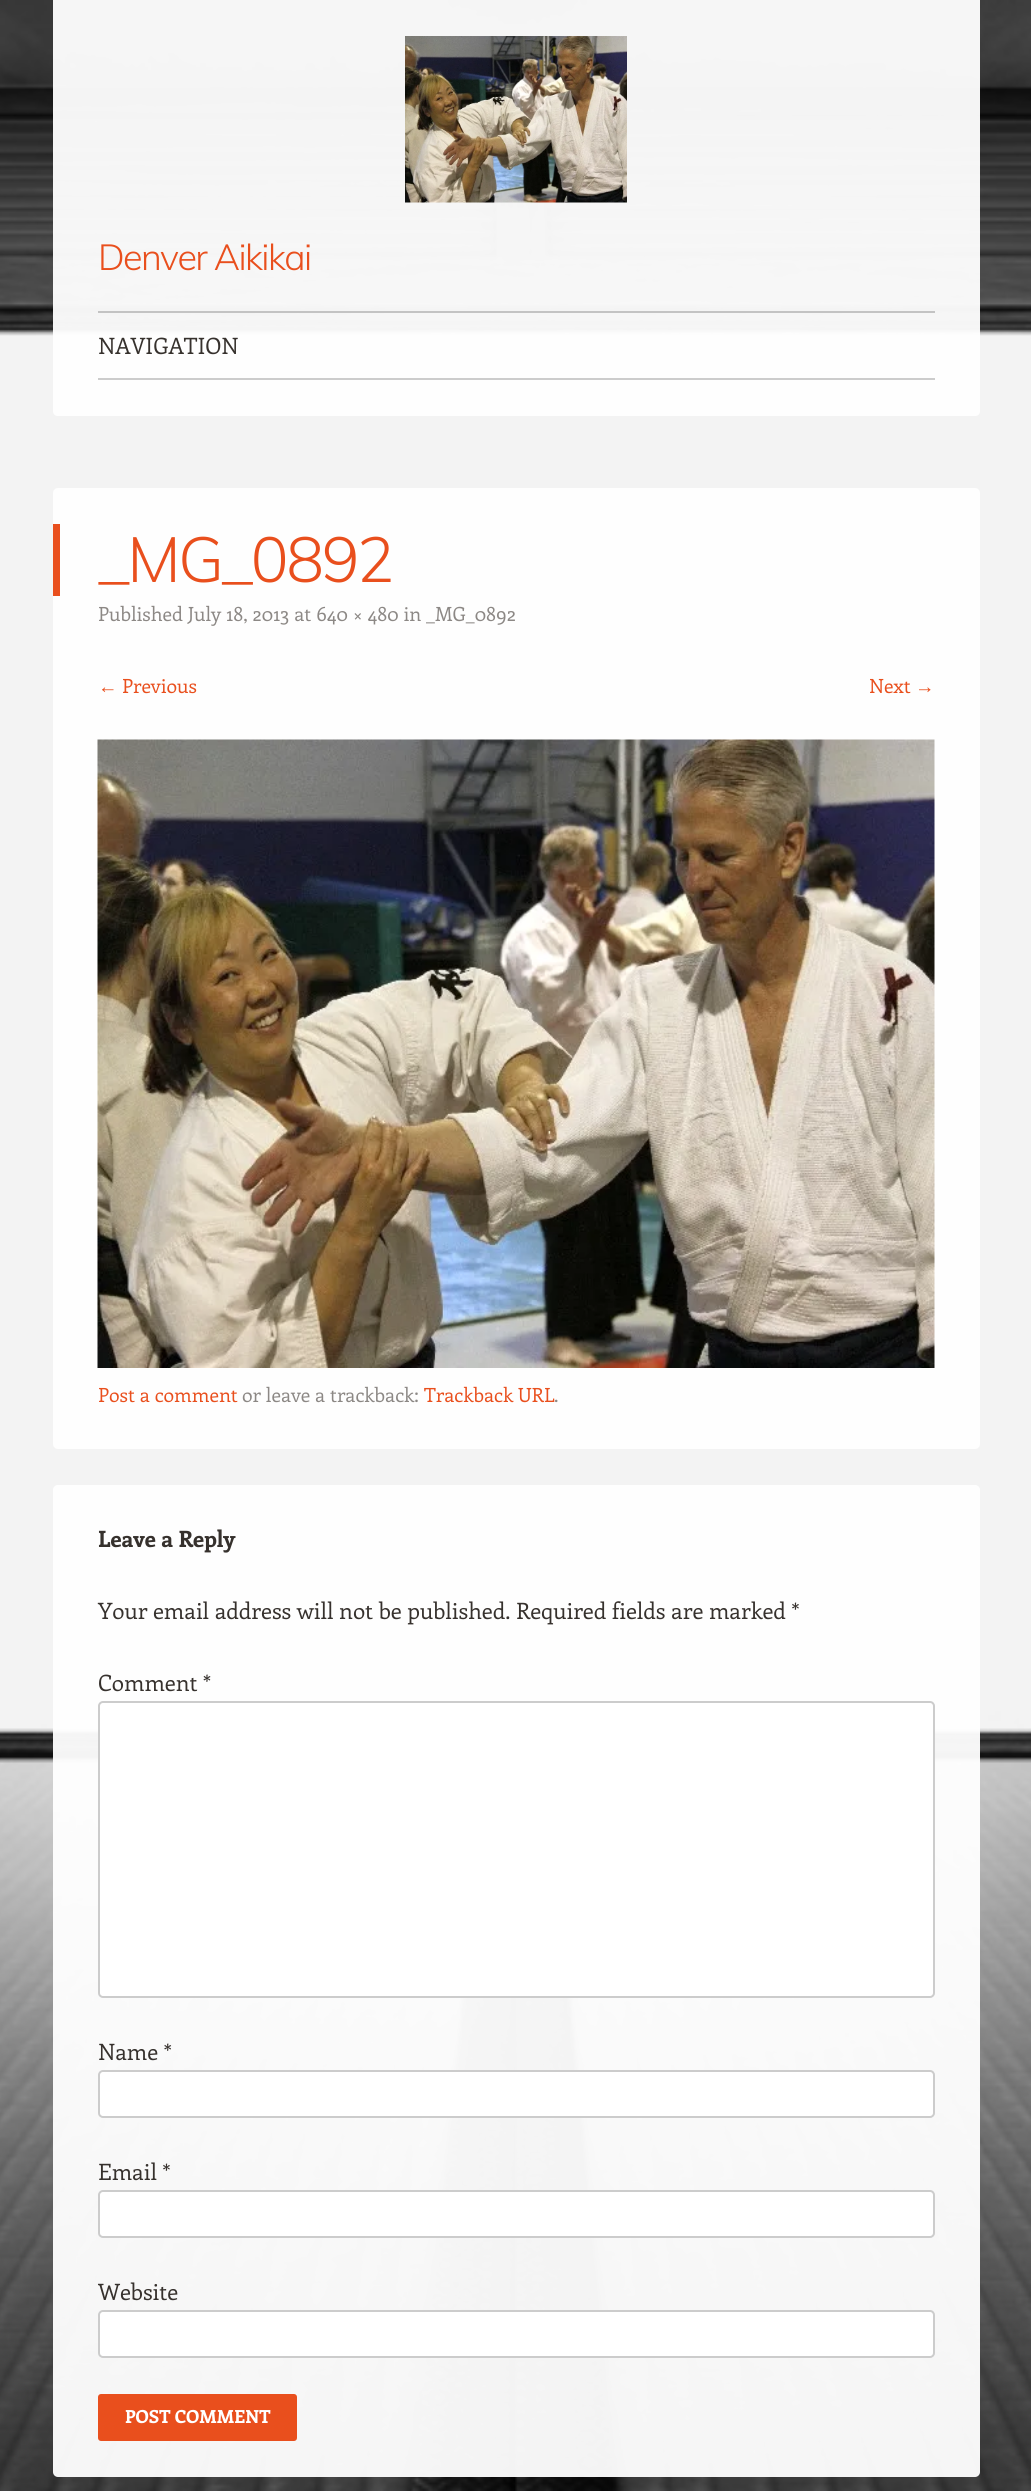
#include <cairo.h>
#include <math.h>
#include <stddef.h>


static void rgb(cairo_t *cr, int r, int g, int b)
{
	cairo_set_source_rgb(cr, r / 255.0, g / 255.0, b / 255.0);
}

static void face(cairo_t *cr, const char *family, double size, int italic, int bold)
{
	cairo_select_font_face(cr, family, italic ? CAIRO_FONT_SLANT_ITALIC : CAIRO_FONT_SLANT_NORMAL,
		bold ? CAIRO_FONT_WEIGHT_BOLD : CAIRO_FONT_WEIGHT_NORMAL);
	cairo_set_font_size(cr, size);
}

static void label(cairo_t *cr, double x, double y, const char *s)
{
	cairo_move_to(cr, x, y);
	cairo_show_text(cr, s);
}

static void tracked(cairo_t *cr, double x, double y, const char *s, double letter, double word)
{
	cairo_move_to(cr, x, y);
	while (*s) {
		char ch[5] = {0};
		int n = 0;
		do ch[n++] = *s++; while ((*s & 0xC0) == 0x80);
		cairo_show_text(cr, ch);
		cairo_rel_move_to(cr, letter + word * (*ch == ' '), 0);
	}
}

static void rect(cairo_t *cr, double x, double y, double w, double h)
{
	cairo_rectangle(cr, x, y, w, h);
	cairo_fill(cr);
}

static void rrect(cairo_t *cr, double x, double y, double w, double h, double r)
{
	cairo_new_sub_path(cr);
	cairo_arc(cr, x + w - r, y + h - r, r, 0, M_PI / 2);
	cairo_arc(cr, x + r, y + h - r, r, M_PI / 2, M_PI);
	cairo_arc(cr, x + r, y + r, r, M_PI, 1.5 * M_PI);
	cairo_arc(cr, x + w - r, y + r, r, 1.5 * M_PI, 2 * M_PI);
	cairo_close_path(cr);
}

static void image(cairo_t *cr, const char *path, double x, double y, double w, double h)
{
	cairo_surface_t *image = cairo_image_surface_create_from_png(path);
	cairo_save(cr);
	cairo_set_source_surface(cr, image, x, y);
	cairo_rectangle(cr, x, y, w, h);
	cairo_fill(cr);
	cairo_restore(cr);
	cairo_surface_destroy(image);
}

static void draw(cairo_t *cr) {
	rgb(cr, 255, 255, 255);
	cairo_paint(cr);
	image(cr, "image0.png", 0, 0, 1031, 2491);
	cairo_set_source_rgba(cr, 1, 1, 1, 0.95);
	cairo_new_path(cr);
	cairo_move_to(cr, 53, 0);
	cairo_line_to(cr, 980, 0);
	cairo_line_to(cr, 980, 411);
	cairo_curve_to(cr, 980, 414, 978, 416, 975, 416);
	cairo_line_to(cr, 58, 416);
	cairo_curve_to(cr, 55, 416, 53, 414, 53, 411);
	cairo_close_path(cr);
	cairo_fill(cr);
	image(cr, "image1.png", 405, 36, 222, 167);
	face(cr, "Muli Light", 36, 0, 0);
	rgb(cr, 233, 79, 29);
	tracked(cr, 98, 270, "Denver Aikikai", -1.6, 0);
	rgb(cr, 195, 195, 195);
	rect(cr, 98, 311, 837, 2);
	rgb(cr, 204, 204, 204);
	rect(cr, 98, 378, 837, 2);
	face(cr, "Enriqueta", 22.5, 0, 0);
	rgb(cr, 54, 49, 45);
	label(cr, 98, 354, "NAVIGATION");
	rgb(cr, 254, 254, 254);
	rrect(cr, 53, 488, 927, 961, 5);
	cairo_fill(cr);
	rgb(cr, 233, 79, 29);
	rect(cr, 53, 524, 7, 72);
	face(cr, "Muli Light", 63, 0, 0);
	tracked(cr, 98, 582, "_MG_0892", -2.5, 0);
	face(cr, "Enriqueta", 19.5, 0, 0);
	rgb(cr, 140, 136, 133);
	label(cr, 98, 621, "Published July 18, 2013 at 640 × 480 in _MG_0892");
	face(cr, "Liberation Serif", 19.5, 0, 0);
	rgb(cr, 233, 79, 29);
	label(cr, 98, 693, "←");
	face(cr, "Enriqueta", 19.5, 0, 0);
	label(cr, 122, 693, "Previous");
	label(cr, 869, 693, "Next");
	face(cr, "Liberation Serif", 19.5, 0, 0);
	label(cr, 915, 693, "→");
	image(cr, "image2.png", 97, 739, 838, 629);
	face(cr, "Enriqueta", 19.5, 0, 0);
	label(cr, 98, 1402, "Post a comment");
	rgb(cr, 140, 136, 133);
	label(cr, 242, 1402, "or leave a trackback:");
	rgb(cr, 233, 79, 29);
	label(cr, 424, 1402, "Trackback URL");
	rgb(cr, 140, 136, 133);
	label(cr, 554, 1402, ".");
	cairo_set_source_rgba(cr, 1, 1, 1, 0.95);
	rrect(cr, 53, 1485, 927, 992, 5);
	cairo_fill(cr);
	face(cr, "Enriqueta", 22.5, 0, 1);
	rgb(cr, 54, 49, 45);
	label(cr, 98, 1547, "Leave a Reply");
	face(cr, "Enriqueta", 22.5, 0, 0);
	label(cr, 98, 1619, "Your email address will not be published. Required fields are marked *");
	label(cr, 98, 1691, "Comment *");
	rgb(cr, 255, 255, 255);
	rrect(cr, 98, 1701, 837, 297, 5);
	cairo_fill(cr);
	rrect(cr, 99, 1702, 835, 295, 4);
	cairo_set_source_rgba(cr, 0, 0, 0, 0.2);
	cairo_stroke(cr);
	rgb(cr, 54, 49, 45);
	label(cr, 98, 2060, "Name *");
	rgb(cr, 255, 255, 255);
	rrect(cr, 98, 2070, 837, 48, 5);
	cairo_fill(cr);
	rrect(cr, 99, 2071, 835, 46, 4);
	cairo_set_source_rgba(cr, 0, 0, 0, 0.2);
	cairo_stroke(cr);
	rgb(cr, 54, 49, 45);
	label(cr, 98, 2180, "Email *");
	rgb(cr, 255, 255, 255);
	rrect(cr, 98, 2190, 837, 48, 5);
	cairo_fill(cr);
	rrect(cr, 99, 2191, 835, 46, 4);
	cairo_set_source_rgba(cr, 0, 0, 0, 0.2);
	cairo_stroke(cr);
	rgb(cr, 54, 49, 45);
	label(cr, 98, 2300, "Website");
	rgb(cr, 255, 255, 255);
	rrect(cr, 98, 2310, 837, 48, 5);
	cairo_fill(cr);
	rrect(cr, 99, 2311, 835, 46, 4);
	cairo_set_source_rgba(cr, 0, 0, 0, 0.2);
	cairo_stroke(cr);
	rgb(cr, 233, 79, 29);
	rrect(cr, 98, 2394, 199, 47, 3);
	cairo_fill(cr);
	face(cr, "Enriqueta", 18, 0, 1);
	rgb(cr, 255, 255, 255);
	label(cr, 125, 2423, "POST COMMENT");
}

int main(void) {
	cairo_surface_t *surface = cairo_image_surface_create(CAIRO_FORMAT_RGB24, 1031, 2491);
	cairo_t *cr = cairo_create(surface);
	cairo_font_options_t *options = cairo_font_options_create();
	cairo_font_options_set_hint_metrics(options, CAIRO_HINT_METRICS_OFF);
	cairo_font_options_set_hint_style(options, CAIRO_HINT_STYLE_NONE);
	cairo_set_font_options(cr, options);
	cairo_set_miter_limit(cr, 4);
	draw(cr);
	cairo_surface_write_to_png(surface, "render.png");
	cairo_font_options_destroy(options);
	cairo_destroy(cr);
	cairo_surface_destroy(surface);
	return 0;
}
